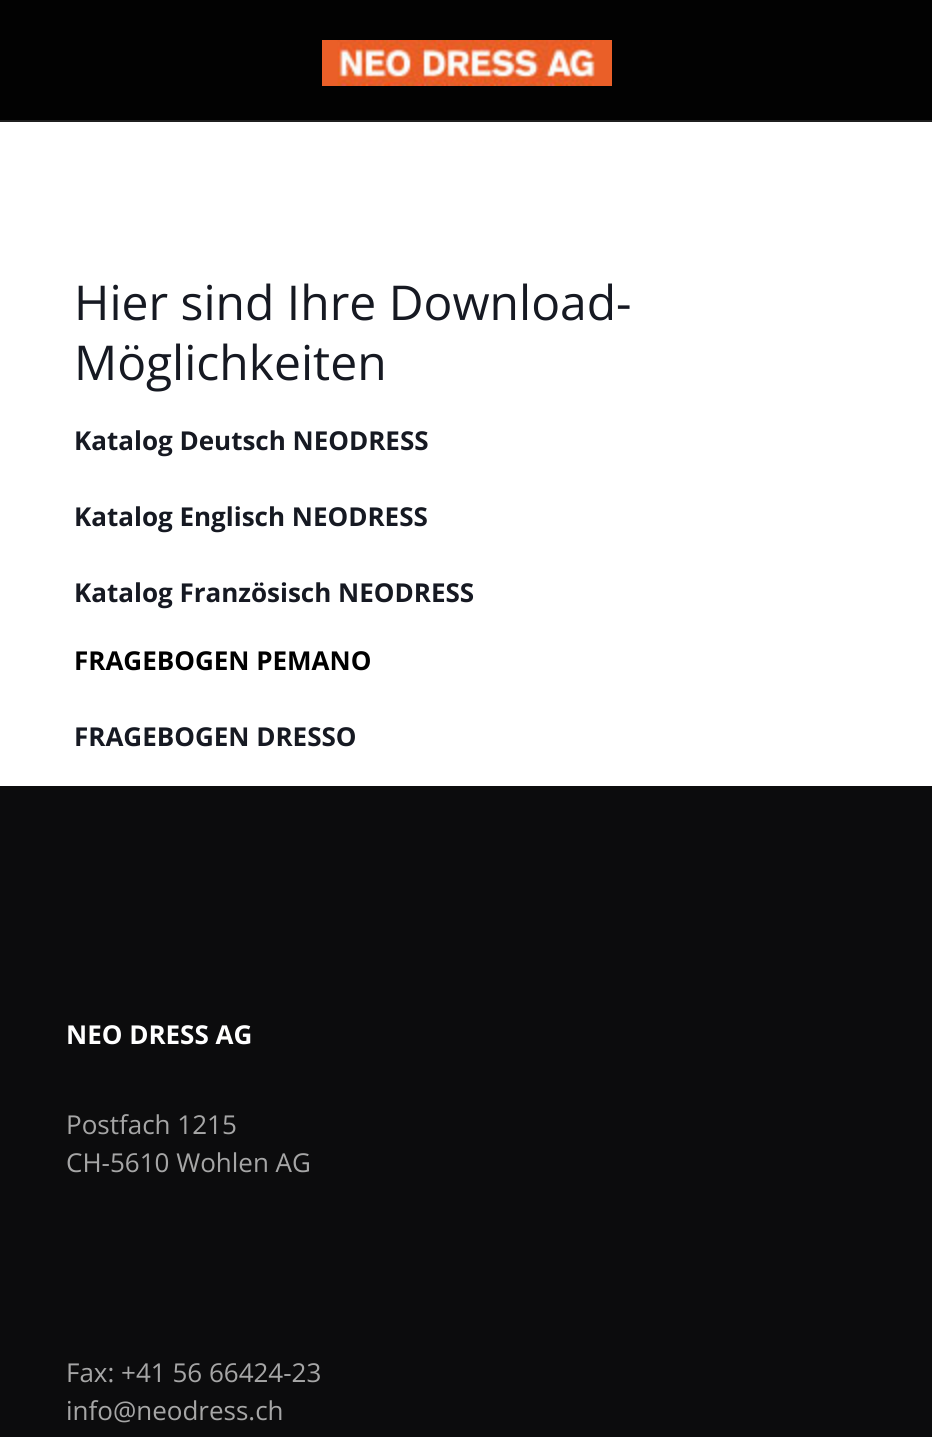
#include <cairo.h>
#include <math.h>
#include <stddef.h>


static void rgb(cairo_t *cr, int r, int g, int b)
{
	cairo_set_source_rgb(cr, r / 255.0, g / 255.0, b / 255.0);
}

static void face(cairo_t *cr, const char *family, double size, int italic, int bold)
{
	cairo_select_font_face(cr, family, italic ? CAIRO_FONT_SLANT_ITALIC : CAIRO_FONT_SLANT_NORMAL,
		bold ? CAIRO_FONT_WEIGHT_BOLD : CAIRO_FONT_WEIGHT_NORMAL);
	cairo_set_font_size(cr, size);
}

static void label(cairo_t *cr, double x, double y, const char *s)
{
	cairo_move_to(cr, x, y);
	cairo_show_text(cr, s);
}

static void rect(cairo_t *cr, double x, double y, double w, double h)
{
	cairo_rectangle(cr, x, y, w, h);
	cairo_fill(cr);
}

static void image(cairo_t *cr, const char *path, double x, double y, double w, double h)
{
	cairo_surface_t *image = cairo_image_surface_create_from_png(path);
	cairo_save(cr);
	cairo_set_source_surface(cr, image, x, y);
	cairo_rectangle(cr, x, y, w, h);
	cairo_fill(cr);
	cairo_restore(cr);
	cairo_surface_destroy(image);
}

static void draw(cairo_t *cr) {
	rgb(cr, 255, 255, 255);
	cairo_paint(cr);
	rgb(cr, 2, 2, 2);
	rect(cr, 0, 0, 932, 120);
	rgb(cr, 31, 31, 31);
	rect(cr, 0, 120, 932, 2);
	image(cr, "image0.png", 322, 40, 290, 46);
	face(cr, "Open Sans", 48, 0, 0);
	rgb(cr, 22, 25, 34);
	label(cr, 74, 320, "Hier sind Ihre Download-");
	label(cr, 74, 380, "Möglichkeiten");
	face(cr, "Open Sans", 26, 0, 1);
	label(cr, 74, 450, "Katalog Deutsch NEODRESS");
	label(cr, 74, 526, "Katalog Englisch NEODRESS");
	label(cr, 74, 602, "Katalog Französisch NEODRESS");
	rgb(cr, 0, 0, 0);
	label(cr, 74, 670, "FRAGEBOGEN PEMANO");
	rgb(cr, 22, 25, 34);
	label(cr, 74, 746, "FRAGEBOGEN DRESSO");
	rgb(cr, 12, 12, 13);
	rect(cr, 0, 786, 932, 651);
	rgb(cr, 255, 255, 255);
	label(cr, 66, 1044, "NEO DRESS AG");
	face(cr, "Open Sans", 26, 0, 0);
	rgb(cr, 166, 166, 166);
	label(cr, 66, 1134, "Postfach 1215");
	label(cr, 66, 1172, "CH-5610 Wohlen AG");
	label(cr, 66, 1382, "Fax: +41 56 66424-23");
	label(cr, 66, 1420, "info@neodress.ch");
}

int main(void) {
	cairo_surface_t *surface = cairo_image_surface_create(CAIRO_FORMAT_RGB24, 932, 1437);
	cairo_t *cr = cairo_create(surface);
	cairo_font_options_t *options = cairo_font_options_create();
	cairo_font_options_set_hint_metrics(options, CAIRO_HINT_METRICS_OFF);
	cairo_font_options_set_hint_style(options, CAIRO_HINT_STYLE_NONE);
	cairo_set_font_options(cr, options);
	cairo_set_miter_limit(cr, 4);
	draw(cr);
	cairo_surface_write_to_png(surface, "render.png");
	cairo_font_options_destroy(options);
	cairo_destroy(cr);
	cairo_surface_destroy(surface);
	return 0;
}
